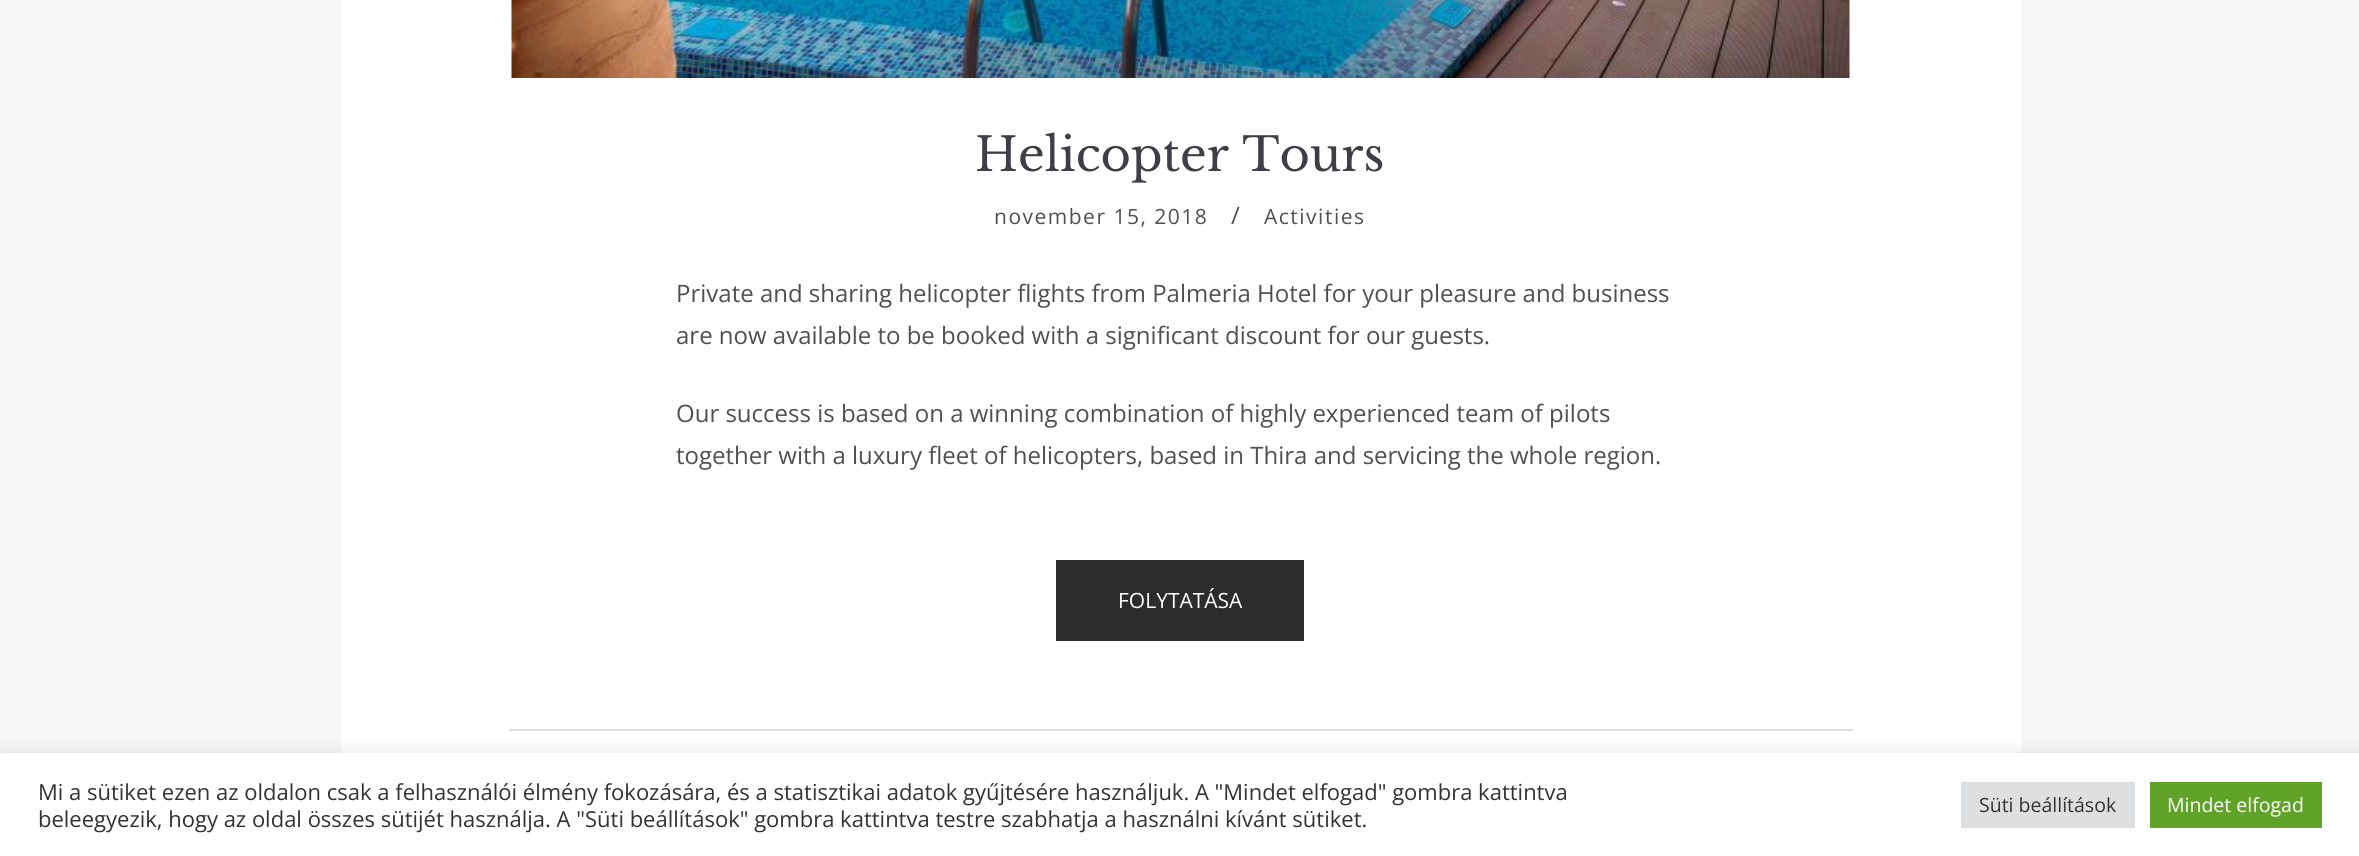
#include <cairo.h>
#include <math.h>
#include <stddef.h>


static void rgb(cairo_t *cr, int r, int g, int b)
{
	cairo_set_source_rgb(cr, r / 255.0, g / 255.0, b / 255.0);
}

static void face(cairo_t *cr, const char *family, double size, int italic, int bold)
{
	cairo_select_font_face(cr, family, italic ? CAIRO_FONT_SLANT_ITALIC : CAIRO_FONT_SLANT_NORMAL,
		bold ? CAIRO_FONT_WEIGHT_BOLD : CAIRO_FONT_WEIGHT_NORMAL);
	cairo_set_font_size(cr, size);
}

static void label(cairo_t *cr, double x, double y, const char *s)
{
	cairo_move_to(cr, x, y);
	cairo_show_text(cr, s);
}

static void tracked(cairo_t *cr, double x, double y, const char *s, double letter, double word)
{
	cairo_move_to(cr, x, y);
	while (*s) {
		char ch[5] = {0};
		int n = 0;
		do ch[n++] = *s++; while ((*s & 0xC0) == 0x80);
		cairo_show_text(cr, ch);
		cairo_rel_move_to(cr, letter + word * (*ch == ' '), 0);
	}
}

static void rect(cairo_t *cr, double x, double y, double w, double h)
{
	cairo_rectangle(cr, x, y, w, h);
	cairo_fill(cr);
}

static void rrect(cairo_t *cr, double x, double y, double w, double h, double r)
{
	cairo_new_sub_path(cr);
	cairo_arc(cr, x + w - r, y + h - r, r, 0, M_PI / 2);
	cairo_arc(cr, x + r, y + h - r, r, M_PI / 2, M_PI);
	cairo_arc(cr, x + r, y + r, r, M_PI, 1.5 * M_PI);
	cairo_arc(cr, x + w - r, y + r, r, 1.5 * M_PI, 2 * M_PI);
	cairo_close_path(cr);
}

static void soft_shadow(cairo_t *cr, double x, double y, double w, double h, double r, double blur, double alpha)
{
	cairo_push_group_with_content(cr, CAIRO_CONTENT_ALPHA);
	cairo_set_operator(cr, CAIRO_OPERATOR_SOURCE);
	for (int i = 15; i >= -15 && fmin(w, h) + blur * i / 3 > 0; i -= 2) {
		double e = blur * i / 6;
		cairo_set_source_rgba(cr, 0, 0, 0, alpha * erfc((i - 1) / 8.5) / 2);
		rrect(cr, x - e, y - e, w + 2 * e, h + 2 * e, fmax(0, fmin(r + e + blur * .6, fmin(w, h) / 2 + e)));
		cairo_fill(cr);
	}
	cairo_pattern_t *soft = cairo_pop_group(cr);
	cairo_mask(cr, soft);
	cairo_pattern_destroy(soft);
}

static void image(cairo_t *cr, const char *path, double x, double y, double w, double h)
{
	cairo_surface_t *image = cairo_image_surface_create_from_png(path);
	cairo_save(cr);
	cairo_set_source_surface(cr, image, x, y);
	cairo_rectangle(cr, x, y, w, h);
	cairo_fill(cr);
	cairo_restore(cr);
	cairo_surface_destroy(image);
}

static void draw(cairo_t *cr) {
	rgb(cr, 246, 246, 246);
	cairo_paint(cr);
	rgb(cr, 255, 255, 255);
	rect(cr, 341, 0, 1680, 753);
	image(cr, "image0.png", 511, 0, 1339, 78);
	face(cr, "Libre Baskerville", 46.5, 0, 0);
	rgb(cr, 62, 63, 70);
	label(cr, 975, 171, "Helicopter Tours");
	face(cr, "Open Sans", 21, 0, 0);
	rgb(cr, 80, 80, 80);
	tracked(cr, 994, 224, "november 15, 2018", 1.5, 0);
	face(cr, "Open Sans", 24, 0, 0);
	tracked(cr, 1231, 224, "/", 1.5, 0);
	face(cr, "Open Sans", 21, 0, 0);
	tracked(cr, 1264, 224, "Activities", 1.5, 0);
	face(cr, "Open Sans", 24, 0, 0);
	label(cr, 676, 302, "Private and sharing helicopter flights from Palmeria Hotel for your pleasure and business");
	label(cr, 676, 344, "are now available to be booked with a significant discount for our guests.");
	label(cr, 676, 422, "Our success is based on a winning combination of highly experienced team of pilots");
	label(cr, 676, 464, "together with a luxury fleet of helicopters, based in Thira and servicing the whole region.");
	rgb(cr, 44, 44, 44);
	rect(cr, 1056, 560, 248, 81);
	face(cr, "Open Sans", 21, 0, 0);
	rgb(cr, 255, 255, 255);
	label(cr, 1118, 608, "FOLYTATÁSA");
	rgb(cr, 221, 221, 221);
	rect(cr, 509, 729, 1344, 2);
	rgb(cr, 172, 171, 171);
	soft_shadow(cr, 0, 752, 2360, 103, 0, 7.5, 0.3);
	rgb(cr, 255, 255, 255);
	rect(cr, 0, 753, 2359, 103);
	face(cr, "Open Sans", 22, 0, 0);
	rgb(cr, 51, 51, 51);
	label(cr, 38, 800, "Mi a sütiket ezen az oldalon csak a felhasználói élmény fokozására, és a statisztikai adatok gyűjtésére használjuk. A \"Mindet elfogad\" gombra kattintva");
	label(cr, 38, 827, "beleegyezik, hogy az oldal összes sütijét használja. A \"Süti beállítások\" gombra kattintva testre szabhatja a használni kívánt sütiket.");
	rgb(cr, 222, 223, 224);
	rect(cr, 1961, 782, 174, 46);
	face(cr, "Open Sans", 19.5, 0, 0);
	rgb(cr, 51, 51, 51);
	label(cr, 1979, 812, "Süti beállítások");
	rgb(cr, 97, 162, 41);
	rect(cr, 2150, 782, 172, 46);
	rgb(cr, 255, 255, 255);
	label(cr, 2167, 812, "Mindet elfogad");
}

int main(void) {
	cairo_surface_t *surface = cairo_image_surface_create(CAIRO_FORMAT_RGB24, 2359, 856);
	cairo_t *cr = cairo_create(surface);
	cairo_font_options_t *options = cairo_font_options_create();
	cairo_font_options_set_hint_metrics(options, CAIRO_HINT_METRICS_OFF);
	cairo_font_options_set_hint_style(options, CAIRO_HINT_STYLE_NONE);
	cairo_set_font_options(cr, options);
	cairo_set_miter_limit(cr, 4);
	draw(cr);
	cairo_surface_write_to_png(surface, "render.png");
	cairo_font_options_destroy(options);
	cairo_destroy(cr);
	cairo_surface_destroy(surface);
	return 0;
}
